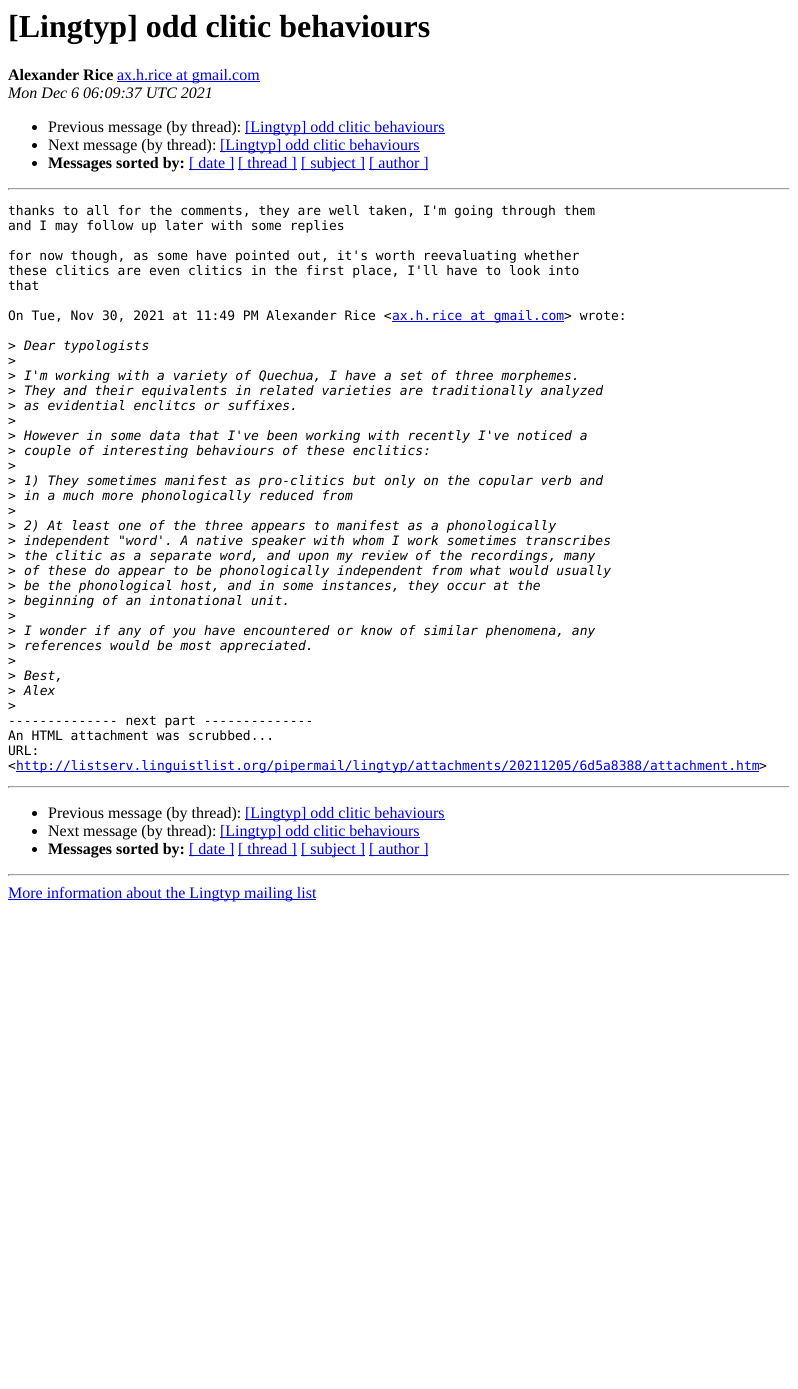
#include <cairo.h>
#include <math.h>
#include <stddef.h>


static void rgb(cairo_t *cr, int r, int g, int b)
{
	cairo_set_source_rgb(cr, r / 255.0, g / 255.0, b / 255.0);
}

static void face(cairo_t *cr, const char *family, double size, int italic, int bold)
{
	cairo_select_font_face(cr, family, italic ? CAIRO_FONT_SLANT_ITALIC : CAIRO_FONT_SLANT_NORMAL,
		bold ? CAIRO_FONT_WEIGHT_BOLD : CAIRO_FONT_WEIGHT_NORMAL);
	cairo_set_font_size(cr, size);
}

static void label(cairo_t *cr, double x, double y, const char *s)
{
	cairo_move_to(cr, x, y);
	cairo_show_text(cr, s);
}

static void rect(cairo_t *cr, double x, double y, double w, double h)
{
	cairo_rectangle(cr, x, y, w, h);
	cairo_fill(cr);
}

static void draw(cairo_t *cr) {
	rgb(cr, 255, 255, 255);
	cairo_paint(cr);
	face(cr, "Liberation Serif", 32, 0, 1);
	rgb(cr, 0, 0, 0);
	label(cr, 8, 37, "[Lingtyp] odd clitic behaviours");
	face(cr, "Liberation Serif", 16, 0, 1);
	label(cr, 8, 80, "Alexander Rice");
	rgb(cr, 0, 0, 238);
	rect(cr, 117, 81, 143, 1);
	face(cr, "Liberation Serif", 16, 0, 0);
	label(cr, 117, 80, "ax.h.rice at gmail.com");
	face(cr, "Liberation Serif", 16, 1, 0);
	rgb(cr, 0, 0, 0);
	label(cr, 8, 98, "Mon Dec 6 06:09:37 UTC 2021");
	cairo_new_path(cr);
	cairo_arc(cr, 34.5, 127.5, 2.5, 0, 2 * M_PI);
	cairo_fill(cr);
	face(cr, "Liberation Serif", 16, 0, 0);
	label(cr, 48, 132, "Previous message (by thread):");
	rgb(cr, 0, 0, 238);
	rect(cr, 245, 133, 200, 1);
	label(cr, 245, 132, "[Lingtyp] odd clitic behaviours");
	rgb(cr, 0, 0, 0);
	cairo_new_path(cr);
	cairo_arc(cr, 34.5, 145.5, 2.5, 0, 2 * M_PI);
	cairo_fill(cr);
	label(cr, 48, 150, "Next message (by thread):");
	rgb(cr, 0, 0, 238);
	rect(cr, 220, 151, 200, 1);
	label(cr, 220, 150, "[Lingtyp] odd clitic behaviours");
	rgb(cr, 0, 0, 0);
	cairo_new_path(cr);
	cairo_arc(cr, 34.5, 163.5, 2.5, 0, 2 * M_PI);
	cairo_fill(cr);
	face(cr, "Liberation Serif", 16, 0, 1);
	label(cr, 48, 168, "Messages sorted by:");
	rgb(cr, 0, 0, 238);
	rect(cr, 189, 169, 45, 1);
	face(cr, "Liberation Serif", 16, 0, 0);
	label(cr, 189, 168, "[ date ]");
	rect(cr, 238, 169, 59, 1);
	label(cr, 238, 168, "[ thread ]");
	rect(cr, 301, 169, 64, 1);
	label(cr, 301, 168, "[ subject ]");
	rect(cr, 369, 169, 59, 1);
	label(cr, 369, 168, "[ author ]");
	rgb(cr, 159, 159, 159);
	rect(cr, 8, 188, 782, 1);
	rgb(cr, 238, 238, 238);
	rect(cr, 789, 188, 1, 2);
	rect(cr, 8, 189, 782, 1);
	rgb(cr, 159, 159, 159);
	rect(cr, 8, 188, 1, 2);
	face(cr, "DejaVu Sans Mono", 13, 0, 0);
	rgb(cr, 0, 0, 0);
	label(cr, 8, 215, "thanks to all for the comments, they are well taken, I'm going through them");
	label(cr, 8, 230, "and I may follow up later with some replies");
	label(cr, 8, 260, "for now though, as some have pointed out, it's worth reevaluating whether");
	label(cr, 8, 275, "these clitics are even clitics in the first place, I'll have to look into");
	label(cr, 8, 290, "that");
	label(cr, 8, 320, "On Tue, Nov 30, 2021 at 11:49 PM Alexander Rice <");
	rgb(cr, 0, 0, 238);
	rect(cr, 392, 321, 172, 1);
	label(cr, 392, 320, "ax.h.rice at gmail.com");
	rgb(cr, 0, 0, 0);
	label(cr, 564, 320, "> wrote:");
	label(cr, 8, 350, ">");
	face(cr, "DejaVu Sans Mono", 13, 1, 0);
	label(cr, 24, 350, "Dear typologists");
	face(cr, "DejaVu Sans Mono", 13, 0, 0);
	label(cr, 8, 365, ">");
	label(cr, 8, 380, ">");
	face(cr, "DejaVu Sans Mono", 13, 1, 0);
	label(cr, 24, 380, "I'm working with a variety of Quechua, I have a set of three morphemes.");
	face(cr, "DejaVu Sans Mono", 13, 0, 0);
	label(cr, 8, 395, ">");
	face(cr, "DejaVu Sans Mono", 13, 1, 0);
	label(cr, 24, 395, "They and their equivalents in related varieties are traditionally analyzed");
	face(cr, "DejaVu Sans Mono", 13, 0, 0);
	label(cr, 8, 410, ">");
	face(cr, "DejaVu Sans Mono", 13, 1, 0);
	label(cr, 24, 410, "as evidential enclitcs or suffixes.");
	face(cr, "DejaVu Sans Mono", 13, 0, 0);
	label(cr, 8, 425, ">");
	label(cr, 8, 440, ">");
	face(cr, "DejaVu Sans Mono", 13, 1, 0);
	label(cr, 24, 440, "However in some data that I've been working with recently I've noticed a");
	face(cr, "DejaVu Sans Mono", 13, 0, 0);
	label(cr, 8, 455, ">");
	face(cr, "DejaVu Sans Mono", 13, 1, 0);
	label(cr, 24, 455, "couple of interesting behaviours of these enclitics:");
	face(cr, "DejaVu Sans Mono", 13, 0, 0);
	label(cr, 8, 470, ">");
	label(cr, 8, 485, ">");
	face(cr, "DejaVu Sans Mono", 13, 1, 0);
	label(cr, 24, 485, "1) They sometimes manifest as pro-clitics but only on the copular verb and");
	face(cr, "DejaVu Sans Mono", 13, 0, 0);
	label(cr, 8, 500, ">");
	face(cr, "DejaVu Sans Mono", 13, 1, 0);
	label(cr, 24, 500, "in a much more phonologically reduced from");
	face(cr, "DejaVu Sans Mono", 13, 0, 0);
	label(cr, 8, 515, ">");
	label(cr, 8, 530, ">");
	face(cr, "DejaVu Sans Mono", 13, 1, 0);
	label(cr, 24, 530, "2) At least one of the three appears to manifest as a phonologically");
	face(cr, "DejaVu Sans Mono", 13, 0, 0);
	label(cr, 8, 545, ">");
	face(cr, "DejaVu Sans Mono", 13, 1, 0);
	label(cr, 24, 545, "independent \"word'. A native speaker with whom I work sometimes transcribes");
	face(cr, "DejaVu Sans Mono", 13, 0, 0);
	label(cr, 8, 560, ">");
	face(cr, "DejaVu Sans Mono", 13, 1, 0);
	label(cr, 24, 560, "the clitic as a separate word, and upon my review of the recordings, many");
	face(cr, "DejaVu Sans Mono", 13, 0, 0);
	label(cr, 8, 575, ">");
	face(cr, "DejaVu Sans Mono", 13, 1, 0);
	label(cr, 24, 575, "of these do appear to be phonologically independent from what would usually");
	face(cr, "DejaVu Sans Mono", 13, 0, 0);
	label(cr, 8, 590, ">");
	face(cr, "DejaVu Sans Mono", 13, 1, 0);
	label(cr, 24, 590, "be the phonological host, and in some instances, they occur at the");
	face(cr, "DejaVu Sans Mono", 13, 0, 0);
	label(cr, 8, 605, ">");
	face(cr, "DejaVu Sans Mono", 13, 1, 0);
	label(cr, 24, 605, "beginning of an intonational unit.");
	face(cr, "DejaVu Sans Mono", 13, 0, 0);
	label(cr, 8, 620, ">");
	label(cr, 8, 635, ">");
	face(cr, "DejaVu Sans Mono", 13, 1, 0);
	label(cr, 24, 635, "I wonder if any of you have encountered or know of similar phenomena, any");
	face(cr, "DejaVu Sans Mono", 13, 0, 0);
	label(cr, 8, 650, ">");
	face(cr, "DejaVu Sans Mono", 13, 1, 0);
	label(cr, 24, 650, "references would be most appreciated.");
	face(cr, "DejaVu Sans Mono", 13, 0, 0);
	label(cr, 8, 665, ">");
	label(cr, 8, 680, ">");
	face(cr, "DejaVu Sans Mono", 13, 1, 0);
	label(cr, 24, 680, "Best,");
	face(cr, "DejaVu Sans Mono", 13, 0, 0);
	label(cr, 8, 695, ">");
	face(cr, "DejaVu Sans Mono", 13, 1, 0);
	label(cr, 24, 695, "Alex");
	face(cr, "DejaVu Sans Mono", 13, 0, 0);
	label(cr, 8, 710, ">");
	label(cr, 8, 725, "-------------- next part --------------");
	label(cr, 8, 740, "An HTML attachment was scrubbed...");
	label(cr, 8, 755, "URL:");
	label(cr, 8, 770, "<");
	rgb(cr, 0, 0, 238);
	rect(cr, 16, 771, 743, 1);
	label(cr, 16, 770, "http://listserv.linguistlist.org/pipermail/lingtyp/attachments/20211205/6d5a8388/attachment.htm");
	rgb(cr, 0, 0, 0);
	label(cr, 759, 770, ">");
	rgb(cr, 159, 159, 159);
	rect(cr, 8, 786, 782, 1);
	rgb(cr, 238, 238, 238);
	rect(cr, 789, 786, 1, 2);
	rect(cr, 8, 787, 782, 1);
	rgb(cr, 159, 159, 159);
	rect(cr, 8, 786, 1, 2);
	rgb(cr, 0, 0, 0);
	cairo_new_path(cr);
	cairo_arc(cr, 34.5, 813.5, 2.5, 0, 2 * M_PI);
	cairo_fill(cr);
	face(cr, "Liberation Serif", 16, 0, 0);
	label(cr, 48, 818, "Previous message (by thread):");
	rgb(cr, 0, 0, 238);
	rect(cr, 245, 819, 200, 1);
	label(cr, 245, 818, "[Lingtyp] odd clitic behaviours");
	rgb(cr, 0, 0, 0);
	cairo_new_path(cr);
	cairo_arc(cr, 34.5, 831.5, 2.5, 0, 2 * M_PI);
	cairo_fill(cr);
	label(cr, 48, 836, "Next message (by thread):");
	rgb(cr, 0, 0, 238);
	rect(cr, 220, 837, 200, 1);
	label(cr, 220, 836, "[Lingtyp] odd clitic behaviours");
	rgb(cr, 0, 0, 0);
	cairo_new_path(cr);
	cairo_arc(cr, 34.5, 849.5, 2.5, 0, 2 * M_PI);
	cairo_fill(cr);
	face(cr, "Liberation Serif", 16, 0, 1);
	label(cr, 48, 854, "Messages sorted by:");
	rgb(cr, 0, 0, 238);
	rect(cr, 189, 855, 45, 1);
	face(cr, "Liberation Serif", 16, 0, 0);
	label(cr, 189, 854, "[ date ]");
	rect(cr, 238, 855, 59, 1);
	label(cr, 238, 854, "[ thread ]");
	rect(cr, 301, 855, 64, 1);
	label(cr, 301, 854, "[ subject ]");
	rect(cr, 369, 855, 59, 1);
	label(cr, 369, 854, "[ author ]");
	rgb(cr, 159, 159, 159);
	rect(cr, 8, 874, 782, 1);
	rgb(cr, 238, 238, 238);
	rect(cr, 789, 874, 1, 2);
	rect(cr, 8, 875, 782, 1);
	rgb(cr, 159, 159, 159);
	rect(cr, 8, 874, 1, 2);
	rgb(cr, 0, 0, 238);
	rect(cr, 8, 899, 308, 1);
	label(cr, 8, 898, "More information about the Lingtyp mailing list");
}

int main(void) {
	cairo_surface_t *surface = cairo_image_surface_create(CAIRO_FORMAT_RGB24, 798, 1389);
	cairo_t *cr = cairo_create(surface);
	cairo_font_options_t *options = cairo_font_options_create();
	cairo_font_options_set_hint_metrics(options, CAIRO_HINT_METRICS_OFF);
	cairo_font_options_set_hint_style(options, CAIRO_HINT_STYLE_NONE);
	cairo_set_font_options(cr, options);
	cairo_set_miter_limit(cr, 4);
	draw(cr);
	cairo_surface_write_to_png(surface, "render.png");
	cairo_font_options_destroy(options);
	cairo_destroy(cr);
	cairo_surface_destroy(surface);
	return 0;
}
